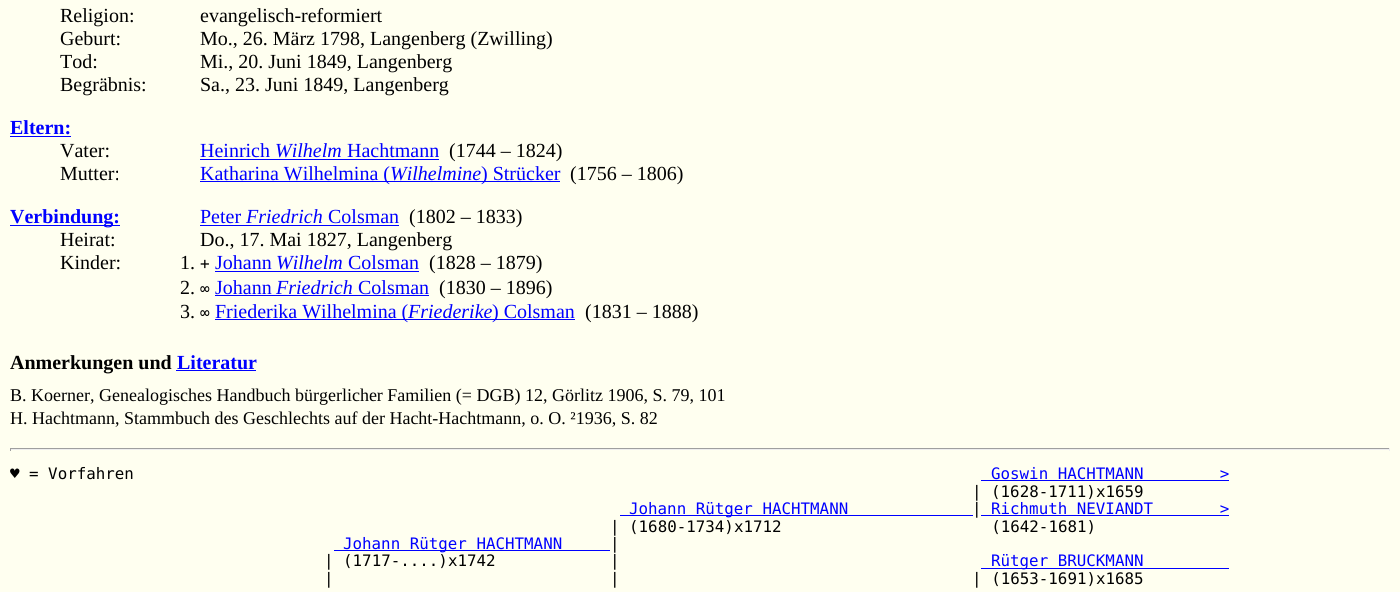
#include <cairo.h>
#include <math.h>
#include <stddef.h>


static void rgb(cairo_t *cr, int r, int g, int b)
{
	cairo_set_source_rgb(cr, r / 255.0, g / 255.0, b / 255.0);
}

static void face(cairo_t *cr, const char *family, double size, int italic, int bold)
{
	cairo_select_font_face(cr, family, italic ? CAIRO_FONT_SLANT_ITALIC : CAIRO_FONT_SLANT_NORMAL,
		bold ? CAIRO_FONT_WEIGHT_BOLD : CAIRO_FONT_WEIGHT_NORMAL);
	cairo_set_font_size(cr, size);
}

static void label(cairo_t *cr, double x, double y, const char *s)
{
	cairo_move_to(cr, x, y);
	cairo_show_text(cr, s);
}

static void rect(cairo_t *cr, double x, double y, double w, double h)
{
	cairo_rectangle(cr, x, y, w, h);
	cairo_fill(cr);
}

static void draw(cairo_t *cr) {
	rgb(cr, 255, 255, 240);
	cairo_paint(cr);
	face(cr, "Liberation Serif", 20, 0, 0);
	rgb(cr, 0, 0, 0);
	label(cr, 60, 22, "Religion:");
	label(cr, 200, 22, "evangelisch-reformiert");
	label(cr, 60, 45, "Geburt:");
	label(cr, 200, 45, "Mo., 26. März 1798, Langenberg (Zwilling)");
	label(cr, 60, 68, "Tod:");
	label(cr, 200, 68, "Mi., 20. Juni 1849, Langenberg");
	label(cr, 60, 91, "Begräbnis:");
	label(cr, 200, 91, "Sa., 23. Juni 1849, Langenberg");
	face(cr, "Liberation Serif", 20, 0, 1);
	rgb(cr, 0, 0, 255);
	label(cr, 10, 134, "Eltern:");
	rect(cr, 10, 136, 61, 1);
	face(cr, "Liberation Serif", 20, 0, 0);
	rgb(cr, 0, 0, 0);
	label(cr, 60, 157, "Vater:");
	rgb(cr, 0, 0, 255);
	label(cr, 200, 157, "Heinrich");
	rect(cr, 200, 159, 239, 1);
	face(cr, "Liberation Serif", 20, 1, 0);
	label(cr, 275, 157, "Wilhelm");
	face(cr, "Liberation Serif", 20, 0, 0);
	label(cr, 347, 157, "Hachtmann");
	rgb(cr, 0, 0, 0);
	label(cr, 449, 157, "(1744 – 1824)");
	label(cr, 60, 180, "Mutter:");
	rgb(cr, 0, 0, 255);
	rect(cr, 200, 181, 360, 1);
	label(cr, 200, 180, "Katharina Wilhelmina (");
	face(cr, "Liberation Serif", 20, 1, 0);
	label(cr, 390, 180, "Wilhelmine");
	face(cr, "Liberation Serif", 20, 0, 0);
	label(cr, 481, 180, ") Strücker");
	rgb(cr, 0, 0, 0);
	label(cr, 570, 180, "(1756 – 1806)");
	rgb(cr, 0, 0, 255);
	rect(cr, 10, 225, 110, 1);
	face(cr, "Liberation Serif", 20, 0, 1);
	label(cr, 10, 223, "Verbindung:");
	face(cr, "Liberation Serif", 20, 0, 0);
	label(cr, 200, 223, "Peter");
	rect(cr, 200, 225, 199, 1);
	face(cr, "Liberation Serif", 20, 1, 0);
	label(cr, 246, 223, "Friedrich");
	face(cr, "Liberation Serif", 20, 0, 0);
	label(cr, 328, 223, "Colsman");
	rgb(cr, 0, 0, 0);
	label(cr, 409, 223, "(1802 – 1833)");
	label(cr, 60, 246, "Heirat:");
	label(cr, 200, 246, "Do., 17. Mai 1827, Langenberg");
	label(cr, 60, 269, "Kinder:");
	label(cr, 180, 269, "1.");
	face(cr, "DejaVu Sans Mono", 16, 0, 0);
	label(cr, 200, 269, "+");
	face(cr, "Liberation Serif", 20, 0, 0);
	rgb(cr, 0, 0, 255);
	label(cr, 215, 269, "Johann");
	rect(cr, 215, 271, 204, 1);
	face(cr, "Liberation Serif", 20, 1, 0);
	label(cr, 276, 269, "Wilhelm");
	face(cr, "Liberation Serif", 20, 0, 0);
	label(cr, 348, 269, "Colsman");
	rgb(cr, 0, 0, 0);
	label(cr, 429, 269, "(1828 – 1879)");
	label(cr, 180, 294, "2.");
	face(cr, "DejaVu Sans Mono", 16, 0, 0);
	label(cr, 200, 294, "∞");
	face(cr, "Liberation Serif", 20, 0, 0);
	rgb(cr, 0, 0, 255);
	label(cr, 215, 294, "Johann");
	rect(cr, 215, 295, 214, 1);
	face(cr, "Liberation Serif", 20, 1, 0);
	label(cr, 276, 294, "Friedrich");
	face(cr, "Liberation Serif", 20, 0, 0);
	label(cr, 358, 294, "Colsman");
	rgb(cr, 0, 0, 0);
	label(cr, 439, 294, "(1830 – 1896)");
	label(cr, 180, 318, "3.");
	face(cr, "DejaVu Sans Mono", 16, 0, 0);
	label(cr, 200, 318, "∞");
	rgb(cr, 0, 0, 255);
	rect(cr, 215, 319, 360, 1);
	face(cr, "Liberation Serif", 20, 0, 0);
	label(cr, 215, 318, "Friederika Wilhelmina (");
	face(cr, "Liberation Serif", 20, 1, 0);
	label(cr, 408, 318, "Friederike");
	face(cr, "Liberation Serif", 20, 0, 0);
	label(cr, 492, 318, ") Colsman");
	rgb(cr, 0, 0, 0);
	label(cr, 585, 318, "(1831 – 1888)");
	face(cr, "Liberation Serif", 20, 0, 1);
	label(cr, 10, 369, "Anmerkungen und");
	rgb(cr, 0, 0, 255);
	label(cr, 177, 369, "Literatur");
	rect(cr, 176, 370, 80, 1);
	face(cr, "Liberation Serif", 18, 0, 0);
	rgb(cr, 0, 0, 0);
	label(cr, 10, 401, "B. Koerner, Genealogisches Handbuch bürgerlicher Familien (= DGB) 12, Görlitz 1906, S. 79, 101");
	label(cr, 10, 424, "H. Hachtmann, Stammbuch des Geschlechts auf der Hacht-Hachtmann, o. O. ²1936, S. 82");
	rgb(cr, 159, 159, 159);
	rect(cr, 10, 448, 1380, 1);
	rgb(cr, 238, 238, 238);
	rect(cr, 1389, 448, 1, 3);
	rect(cr, 10, 449, 1380, 1);
	rgb(cr, 159, 159, 159);
	rect(cr, 10, 448, 1, 3);
	face(cr, "DejaVu Sans Mono", 15.83, 0, 0);
	rgb(cr, 0, 0, 0);
	label(cr, 10, 479, "♥ = Vorfahren");
	rgb(cr, 0, 0, 255);
	label(cr, 991, 479, "Goswin HACHTMANN        >");
	rect(cr, 981, 480, 248, 1);
	rgb(cr, 0, 0, 0);
	label(cr, 972, 497, "| (1628-1711)x1659");
	rgb(cr, 0, 0, 255);
	rect(cr, 620, 515, 353, 1);
	label(cr, 629, 514, "Johann Rütger HACHTMANN");
	rgb(cr, 0, 0, 0);
	label(cr, 972, 514, "|");
	rgb(cr, 0, 0, 255);
	label(cr, 991, 514, "Richmuth NEVIANDT       >");
	rect(cr, 981, 515, 248, 1);
	rgb(cr, 0, 0, 0);
	label(cr, 610, 532, "| (1680-1734)x1712                      (1642-1681)");
	rgb(cr, 0, 0, 255);
	rect(cr, 334, 550, 276, 1);
	label(cr, 343, 549, "Johann Rütger HACHTMANN");
	rgb(cr, 0, 0, 0);
	label(cr, 610, 549, "|");
	label(cr, 324, 566, "| (1717-....)x1742            |");
	rgb(cr, 0, 0, 255);
	rect(cr, 981, 568, 248, 1);
	label(cr, 991, 566, "Rütger BRUCKMANN");
	rgb(cr, 0, 0, 0);
	label(cr, 324, 584, "|                             |                                     | (1653-1691)x1685");
}

int main(void) {
	cairo_surface_t *surface = cairo_image_surface_create(CAIRO_FORMAT_RGB24, 1400, 592);
	cairo_t *cr = cairo_create(surface);
	cairo_font_options_t *options = cairo_font_options_create();
	cairo_font_options_set_hint_metrics(options, CAIRO_HINT_METRICS_OFF);
	cairo_font_options_set_hint_style(options, CAIRO_HINT_STYLE_NONE);
	cairo_set_font_options(cr, options);
	cairo_set_miter_limit(cr, 4);
	draw(cr);
	cairo_surface_write_to_png(surface, "render.png");
	cairo_font_options_destroy(options);
	cairo_destroy(cr);
	cairo_surface_destroy(surface);
	return 0;
}
